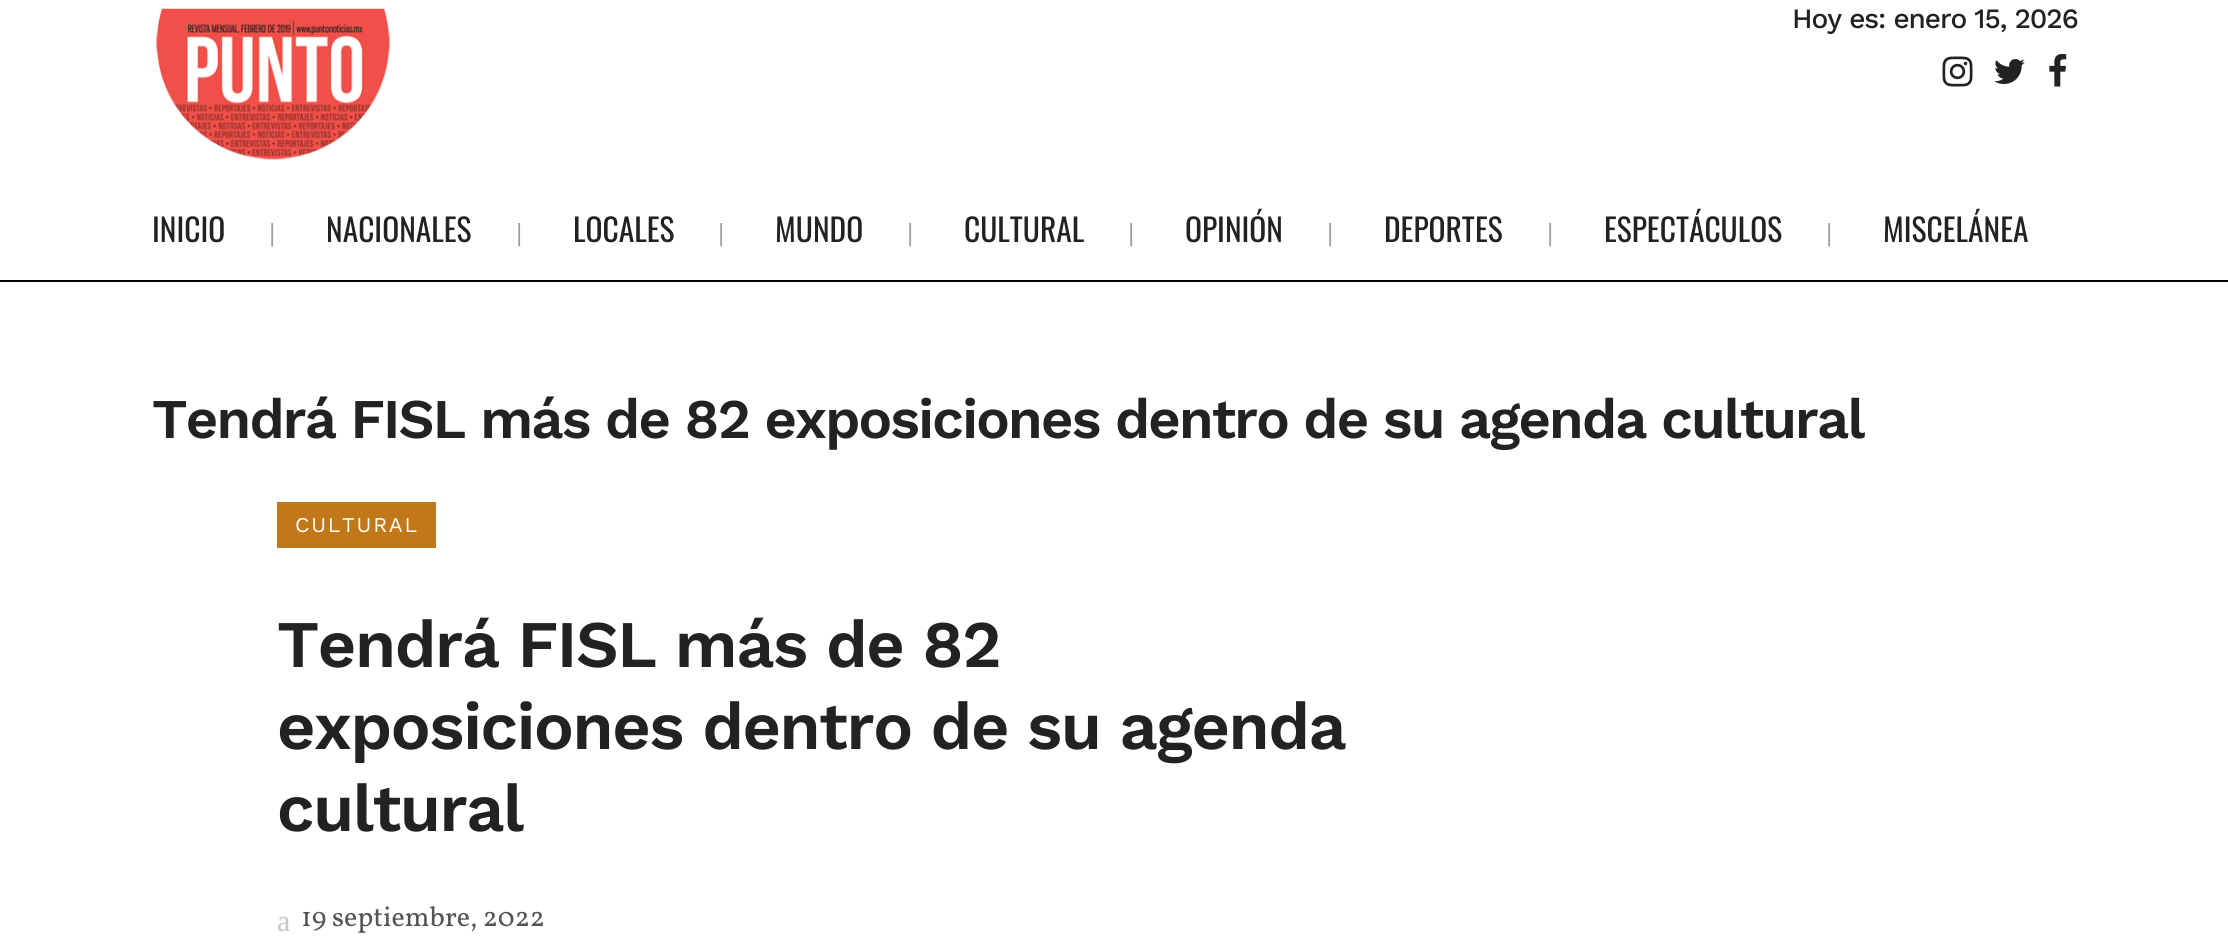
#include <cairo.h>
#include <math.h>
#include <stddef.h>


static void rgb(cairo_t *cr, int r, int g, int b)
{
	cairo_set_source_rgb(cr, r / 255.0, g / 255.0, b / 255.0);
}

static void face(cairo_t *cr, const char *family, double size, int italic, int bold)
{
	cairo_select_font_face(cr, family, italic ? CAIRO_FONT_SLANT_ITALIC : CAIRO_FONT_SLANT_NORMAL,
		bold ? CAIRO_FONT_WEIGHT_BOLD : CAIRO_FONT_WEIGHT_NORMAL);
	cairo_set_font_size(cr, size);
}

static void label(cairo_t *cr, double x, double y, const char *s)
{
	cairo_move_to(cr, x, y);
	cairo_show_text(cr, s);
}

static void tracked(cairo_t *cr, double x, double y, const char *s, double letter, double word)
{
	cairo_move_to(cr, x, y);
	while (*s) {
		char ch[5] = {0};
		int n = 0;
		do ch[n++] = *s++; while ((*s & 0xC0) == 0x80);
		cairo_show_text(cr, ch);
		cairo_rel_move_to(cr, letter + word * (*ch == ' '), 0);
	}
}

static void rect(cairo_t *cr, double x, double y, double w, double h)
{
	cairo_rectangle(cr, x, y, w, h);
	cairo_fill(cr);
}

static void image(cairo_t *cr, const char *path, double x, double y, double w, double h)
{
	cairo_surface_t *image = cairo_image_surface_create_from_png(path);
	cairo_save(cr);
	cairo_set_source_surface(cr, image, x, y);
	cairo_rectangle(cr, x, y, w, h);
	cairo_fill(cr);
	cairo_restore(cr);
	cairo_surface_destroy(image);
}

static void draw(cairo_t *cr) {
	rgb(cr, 255, 255, 255);
	cairo_paint(cr);
	rgb(cr, 0, 0, 0);
	rect(cr, 0, 280, 2228, 2);
	image(cr, "image0.png", 156, 8, 234, 152);
	face(cr, "Work Sans Medium", 28, 0, 0);
	rgb(cr, 34, 34, 34);
	tracked(cr, 1792, 28, "Hoy es: enero 15, 2026", -1.05, 0);
	image(cr, "image1.png", 1942, 56, 31, 31);
	image(cr, "image2.png", 1994, 59, 31, 25);
	image(cr, "image3.png", 2049, 54, 18, 33);
	face(cr, "Oswald", 31.5, 0, 0);
	label(cr, 152, 242, "INICIO");
	face(cr, "Work Sans", 26, 0, 0);
	rgb(cr, 158, 158, 158);
	label(cr, 269, 242, "|");
	face(cr, "Oswald", 31.5, 0, 0);
	rgb(cr, 34, 34, 34);
	label(cr, 326, 242, "NACIONALES");
	face(cr, "Work Sans", 26, 0, 0);
	rgb(cr, 158, 158, 158);
	label(cr, 516, 242, "|");
	face(cr, "Oswald", 31.5, 0, 0);
	rgb(cr, 34, 34, 34);
	label(cr, 573, 242, "LOCALES");
	face(cr, "Work Sans", 26, 0, 0);
	rgb(cr, 158, 158, 158);
	label(cr, 718, 242, "|");
	face(cr, "Oswald", 31.5, 0, 0);
	rgb(cr, 34, 34, 34);
	label(cr, 775, 242, "MUNDO");
	face(cr, "Work Sans", 26, 0, 0);
	rgb(cr, 158, 158, 158);
	label(cr, 907, 242, "|");
	face(cr, "Oswald", 31.5, 0, 0);
	rgb(cr, 34, 34, 34);
	label(cr, 964, 242, "CULTURAL");
	face(cr, "Work Sans", 26, 0, 0);
	rgb(cr, 158, 158, 158);
	label(cr, 1128, 242, "|");
	face(cr, "Oswald", 31.5, 0, 0);
	rgb(cr, 34, 34, 34);
	label(cr, 1185, 242, "OPINIÓN");
	face(cr, "Work Sans", 26, 0, 0);
	rgb(cr, 158, 158, 158);
	label(cr, 1327, 242, "|");
	face(cr, "Oswald", 31.5, 0, 0);
	rgb(cr, 34, 34, 34);
	label(cr, 1384, 242, "DEPORTES");
	face(cr, "Work Sans", 26, 0, 0);
	rgb(cr, 158, 158, 158);
	label(cr, 1547, 242, "|");
	face(cr, "Oswald", 31.5, 0, 0);
	rgb(cr, 34, 34, 34);
	label(cr, 1604, 242, "ESPECTÁCULOS");
	face(cr, "Work Sans", 26, 0, 0);
	rgb(cr, 158, 158, 158);
	label(cr, 1826, 242, "|");
	face(cr, "Oswald", 31.5, 0, 0);
	rgb(cr, 34, 34, 34);
	label(cr, 1883, 242, "MISCELÁNEA");
	face(cr, "Work Sans SemiBold", 56, 0, 0);
	tracked(cr, 152, 438, "Tendrá FISL más de 82 exposiciones dentro de su agenda cultural", -1.75, 0);
	rgb(cr, 193, 120, 25);
	rect(cr, 277, 502, 159, 46);
	face(cr, "Work Sans", 21, 0, 0);
	rgb(cr, 255, 255, 255);
	tracked(cr, 295, 532, "CULTURAL", 1.75, 0);
	face(cr, "Work Sans SemiBold", 66.5, 0, 0);
	rgb(cr, 34, 34, 34);
	tracked(cr, 277, 667, "Tendrá FISL más de 82", -1.4, 0);
	tracked(cr, 277, 749, "exposiciones dentro de su agenda", -1.4, 0);
	tracked(cr, 277, 831, "cultural", -1.4, 0);
	face(cr, "Liberation Serif", 30, 0, 0);
	rgb(cr, 198, 198, 198);
	label(cr, 277, 931, "a");
	face(cr, "Vollkorn", 28, 0, 0);
	rgb(cr, 84, 84, 84);
	label(cr, 301, 926, "19 septiembre, 2022");
}

int main(void) {
	cairo_surface_t *surface = cairo_image_surface_create(CAIRO_FORMAT_RGB24, 2228, 940);
	cairo_t *cr = cairo_create(surface);
	cairo_font_options_t *options = cairo_font_options_create();
	cairo_font_options_set_hint_metrics(options, CAIRO_HINT_METRICS_OFF);
	cairo_font_options_set_hint_style(options, CAIRO_HINT_STYLE_NONE);
	cairo_set_font_options(cr, options);
	cairo_set_miter_limit(cr, 4);
	draw(cr);
	cairo_surface_write_to_png(surface, "render.png");
	cairo_font_options_destroy(options);
	cairo_destroy(cr);
	cairo_surface_destroy(surface);
	return 0;
}
